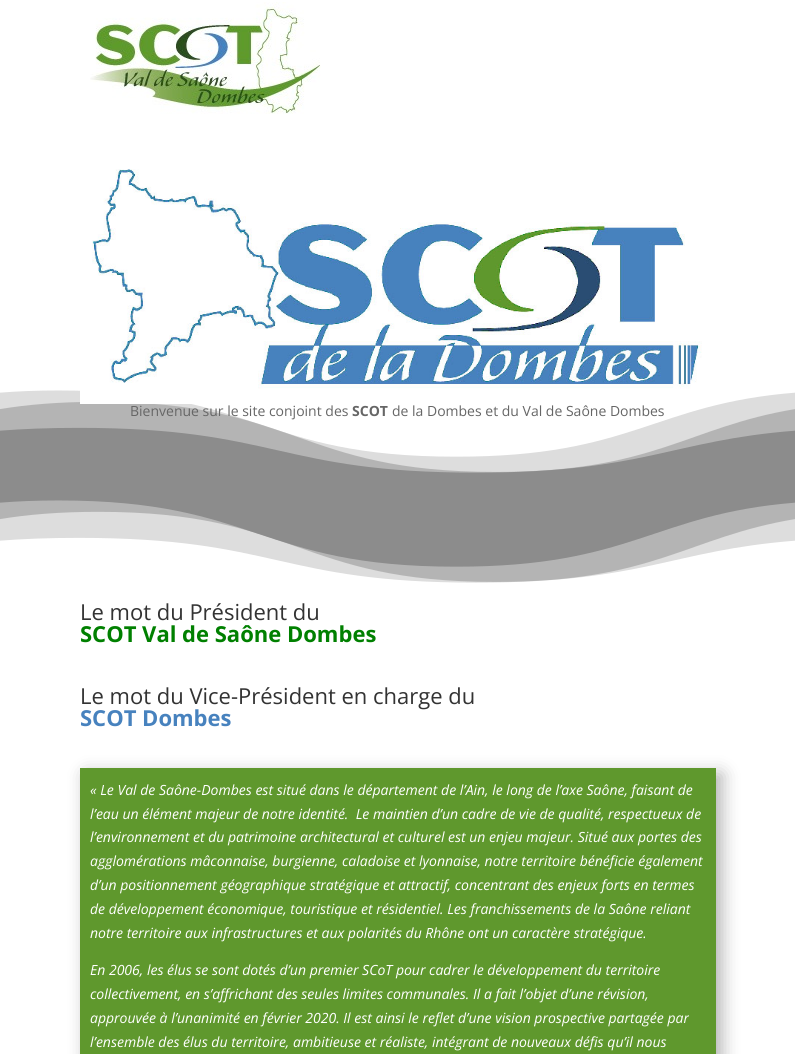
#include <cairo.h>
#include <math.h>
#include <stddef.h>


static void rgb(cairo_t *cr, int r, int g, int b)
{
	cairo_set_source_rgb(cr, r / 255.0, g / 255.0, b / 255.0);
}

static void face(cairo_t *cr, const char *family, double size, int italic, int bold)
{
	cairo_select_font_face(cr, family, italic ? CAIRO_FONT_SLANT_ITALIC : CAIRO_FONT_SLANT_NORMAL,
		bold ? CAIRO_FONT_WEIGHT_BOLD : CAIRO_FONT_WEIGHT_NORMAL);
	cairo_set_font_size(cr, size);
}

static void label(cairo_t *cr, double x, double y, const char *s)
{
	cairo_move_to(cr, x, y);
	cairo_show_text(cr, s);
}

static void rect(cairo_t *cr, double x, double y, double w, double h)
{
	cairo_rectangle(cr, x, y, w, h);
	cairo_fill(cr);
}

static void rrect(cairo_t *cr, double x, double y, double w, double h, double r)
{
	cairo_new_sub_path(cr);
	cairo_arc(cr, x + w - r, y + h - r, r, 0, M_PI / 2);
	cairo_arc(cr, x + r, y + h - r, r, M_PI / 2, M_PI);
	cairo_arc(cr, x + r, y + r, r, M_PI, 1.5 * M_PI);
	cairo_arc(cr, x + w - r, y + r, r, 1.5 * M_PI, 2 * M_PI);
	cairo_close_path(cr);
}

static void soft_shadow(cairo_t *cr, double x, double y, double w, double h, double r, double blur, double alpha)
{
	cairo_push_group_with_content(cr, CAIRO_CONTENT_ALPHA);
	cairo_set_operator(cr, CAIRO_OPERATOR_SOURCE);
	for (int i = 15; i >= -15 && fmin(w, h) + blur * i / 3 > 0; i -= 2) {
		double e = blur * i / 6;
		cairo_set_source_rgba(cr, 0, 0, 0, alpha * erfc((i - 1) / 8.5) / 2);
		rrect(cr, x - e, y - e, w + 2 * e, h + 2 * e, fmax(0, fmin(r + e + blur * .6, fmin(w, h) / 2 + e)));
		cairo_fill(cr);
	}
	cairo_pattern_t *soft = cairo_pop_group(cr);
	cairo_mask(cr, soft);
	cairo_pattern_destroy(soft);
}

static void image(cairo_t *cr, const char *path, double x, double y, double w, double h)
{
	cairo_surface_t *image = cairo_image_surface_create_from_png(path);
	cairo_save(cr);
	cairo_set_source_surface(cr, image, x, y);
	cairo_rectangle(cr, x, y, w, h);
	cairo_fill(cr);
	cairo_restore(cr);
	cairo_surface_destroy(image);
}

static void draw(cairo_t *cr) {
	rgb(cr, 255, 255, 255);
	cairo_paint(cr);
	image(cr, "image0.png", 90, 2, 231, 112);
	image(cr, "image2.png", 0, 390, 795, 110);
	image(cr, "image1.png", 80, 169, 622, 235);
	face(cr, "Open Sans", 14, 0, 0);
	rgb(cr, 102, 102, 102);
	label(cr, 130, 416, "Bienvenue sur le site conjoint des");
	face(cr, "Open Sans", 14, 0, 1);
	label(cr, 352, 416, "SCOT");
	face(cr, "Open Sans", 14, 0, 0);
	label(cr, 392, 416, "de la Dombes et du Val de Saône Dombes");
	image(cr, "image3.png", 0, 500, 795, 83);
	face(cr, "Open Sans", 22, 0, 0);
	rgb(cr, 51, 51, 51);
	label(cr, 80, 620, "Le mot du Président du");
	face(cr, "Open Sans", 22, 0, 1);
	rgb(cr, 0, 128, 0);
	label(cr, 80, 642, "SCOT Val de Saône Dombes");
	face(cr, "Open Sans", 22, 0, 0);
	rgb(cr, 51, 51, 51);
	label(cr, 80, 704, "Le mot du Vice-Président en charge du");
	face(cr, "Open Sans", 22, 0, 1);
	rgb(cr, 71, 130, 190);
	label(cr, 80, 726, "SCOT Dombes");
	rgb(cr, 0, 0, 0);
	soft_shadow(cr, 86, 774, 636, 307, 0, 9, 0.3);
	rgb(cr, 95, 152, 45);
	rect(cr, 80, 768, 636, 286);
	face(cr, "Open Sans", 14, 1, 0);
	rgb(cr, 255, 255, 255);
	label(cr, 90, 795, "« Le Val de Saône-Dombes est situé dans le département de l’Ain, le long de l’axe Saône, faisant de");
	label(cr, 90, 819, "l’eau un élément majeur de notre identité.  Le maintien d’un cadre de vie de qualité, respectueux de");
	label(cr, 90, 842, "l’environnement et du patrimoine architectural et culturel est un enjeu majeur. Situé aux portes des");
	label(cr, 90, 866, "agglomérations mâconnaise, burgienne, caladoise et lyonnaise, notre territoire bénéficie également");
	label(cr, 90, 890, "d’un positionnement géographique stratégique et attractif, concentrant des enjeux forts en termes");
	label(cr, 90, 914, "de développement économique, touristique et résidentiel. Les franchissements de la Saône reliant");
	label(cr, 90, 938, "notre territoire aux infrastructures et aux polarités du Rhône ont un caractère stratégique.");
	label(cr, 90, 975, "En 2006, les élus se sont dotés d’un premier SCoT pour cadrer le développement du territoire");
	label(cr, 90, 999, "collectivement, en s’affrichant des seules limites communales. Il a fait l’objet d’une révision,");
	label(cr, 90, 1023, "approuvée à l’unanimité en février 2020. Il est ainsi le reflet d’une vision prospective partagée par");
	label(cr, 90, 1047, "l’ensemble des élus du territoire, ambitieuse et réaliste, intégrant de nouveaux défis qu’il nous");
}

int main(void) {
	cairo_surface_t *surface = cairo_image_surface_create(CAIRO_FORMAT_RGB24, 795, 1054);
	cairo_t *cr = cairo_create(surface);
	cairo_font_options_t *options = cairo_font_options_create();
	cairo_font_options_set_hint_metrics(options, CAIRO_HINT_METRICS_OFF);
	cairo_font_options_set_hint_style(options, CAIRO_HINT_STYLE_NONE);
	cairo_set_font_options(cr, options);
	cairo_set_miter_limit(cr, 4);
	draw(cr);
	cairo_surface_write_to_png(surface, "render.png");
	cairo_font_options_destroy(options);
	cairo_destroy(cr);
	cairo_surface_destroy(surface);
	return 0;
}
